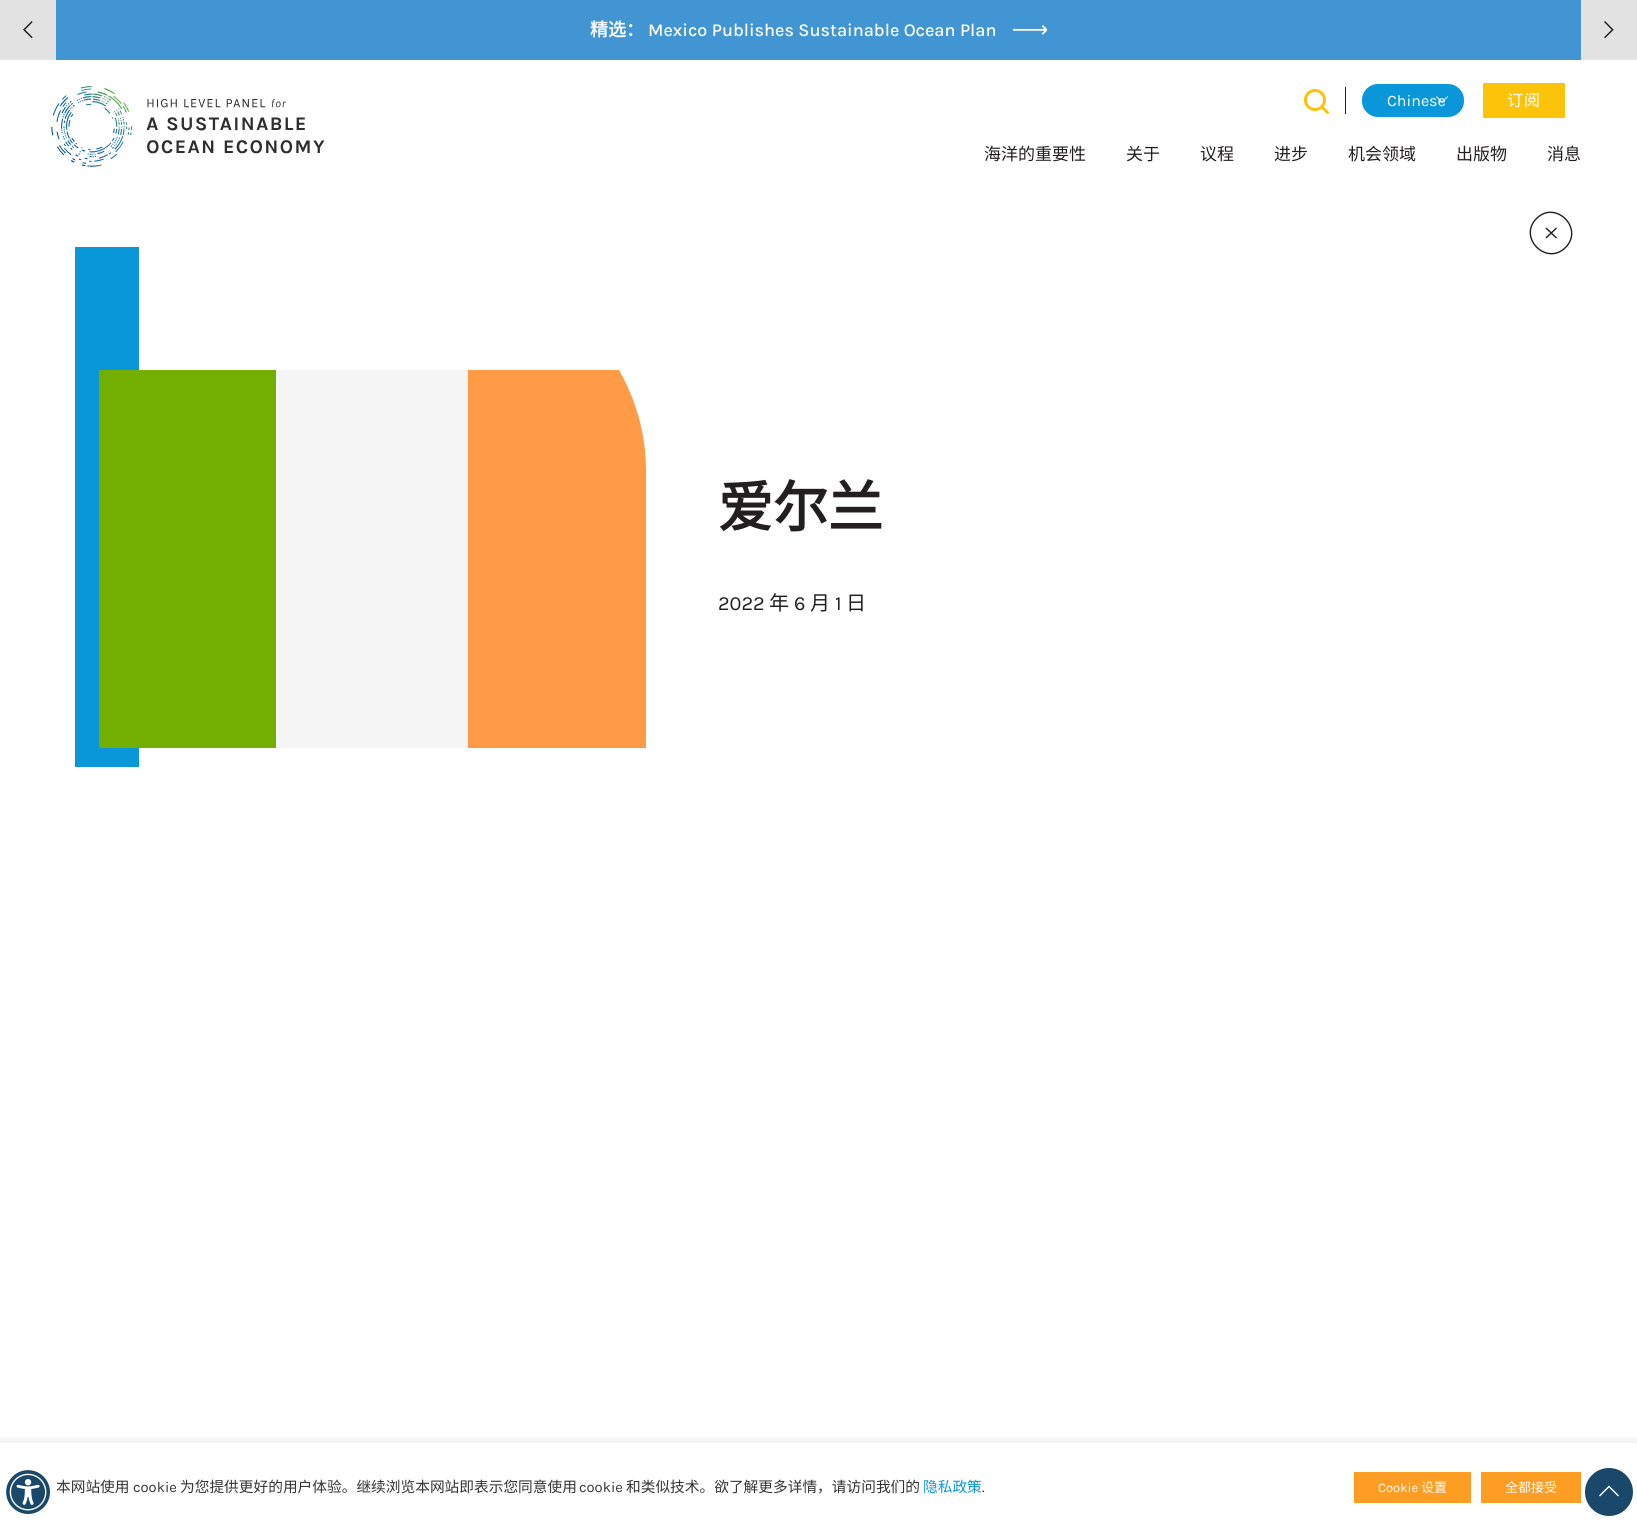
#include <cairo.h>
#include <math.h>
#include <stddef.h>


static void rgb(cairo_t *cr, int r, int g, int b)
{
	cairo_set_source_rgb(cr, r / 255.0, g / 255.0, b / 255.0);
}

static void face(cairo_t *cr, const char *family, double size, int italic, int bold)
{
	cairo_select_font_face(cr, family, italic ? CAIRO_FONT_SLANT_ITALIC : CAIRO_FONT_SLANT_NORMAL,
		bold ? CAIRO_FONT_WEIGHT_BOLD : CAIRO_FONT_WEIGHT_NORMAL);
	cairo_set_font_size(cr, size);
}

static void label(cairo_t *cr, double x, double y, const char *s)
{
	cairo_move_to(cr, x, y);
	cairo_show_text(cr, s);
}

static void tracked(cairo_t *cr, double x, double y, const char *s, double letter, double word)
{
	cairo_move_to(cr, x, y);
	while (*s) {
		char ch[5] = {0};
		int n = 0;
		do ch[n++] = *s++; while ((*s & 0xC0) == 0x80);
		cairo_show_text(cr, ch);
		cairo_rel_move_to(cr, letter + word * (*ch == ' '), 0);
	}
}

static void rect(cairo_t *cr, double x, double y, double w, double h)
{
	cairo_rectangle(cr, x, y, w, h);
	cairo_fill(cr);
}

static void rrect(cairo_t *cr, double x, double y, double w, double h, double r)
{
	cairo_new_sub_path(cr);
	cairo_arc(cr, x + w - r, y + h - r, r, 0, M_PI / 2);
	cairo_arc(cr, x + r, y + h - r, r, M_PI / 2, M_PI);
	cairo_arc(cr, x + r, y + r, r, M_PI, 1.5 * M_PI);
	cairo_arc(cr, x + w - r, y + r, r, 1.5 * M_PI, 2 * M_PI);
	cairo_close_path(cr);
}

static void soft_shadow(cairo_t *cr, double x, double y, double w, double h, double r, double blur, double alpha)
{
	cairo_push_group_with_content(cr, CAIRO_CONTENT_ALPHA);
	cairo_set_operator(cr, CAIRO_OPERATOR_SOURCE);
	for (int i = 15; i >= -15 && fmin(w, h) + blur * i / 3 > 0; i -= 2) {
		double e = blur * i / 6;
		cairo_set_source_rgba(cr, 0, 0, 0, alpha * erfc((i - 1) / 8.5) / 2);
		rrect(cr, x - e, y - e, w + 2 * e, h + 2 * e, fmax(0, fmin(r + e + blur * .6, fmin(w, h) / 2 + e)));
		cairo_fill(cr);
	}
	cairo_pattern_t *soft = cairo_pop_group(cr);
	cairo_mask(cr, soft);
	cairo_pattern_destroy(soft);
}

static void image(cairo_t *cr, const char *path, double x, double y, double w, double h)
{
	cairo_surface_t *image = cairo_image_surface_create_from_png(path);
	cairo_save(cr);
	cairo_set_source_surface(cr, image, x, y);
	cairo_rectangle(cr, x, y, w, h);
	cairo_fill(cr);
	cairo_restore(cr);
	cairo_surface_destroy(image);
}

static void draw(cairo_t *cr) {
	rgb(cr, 255, 255, 255);
	cairo_paint(cr);
	rgb(cr, 66, 149, 211);
	rect(cr, 56, 0, 1525, 60);
	rgb(cr, 226, 226, 226);
	rect(cr, 0, 0, 56, 60);
	image(cr, "image0.png", 23, 21, 10, 18);
	face(cr, "Noto Sans CJK SC", 18, 0, 1);
	rgb(cr, 255, 255, 255);
	label(cr, 590, 36, "精选：");
	face(cr, "Karla Medium", 18, 0, 0);
	label(cr, 648, 36, "Mexico Publishes Sustainable Ocean Plan");
	image(cr, "image1.png", 1013, 25, 34, 10);
	rgb(cr, 226, 226, 226);
	rect(cr, 1581, 0, 56, 60);
	image(cr, "image2.png", 1604, 21, 10, 18);
	image(cr, "image3.png", 51, 86, 274, 81);
	rgb(cr, 35, 31, 32);
	rect(cr, 1345, 87, 1, 27);
	image(cr, "image4.png", 1304, 89, 25, 25);
	rgb(cr, 10, 151, 217);
	rrect(cr, 1362, 84, 102, 33, 16);
	cairo_fill(cr);
	image(cr, "image5.png", 1436, 96, 12, 7);
	face(cr, "Karla", 16, 0, 0);
	rgb(cr, 255, 255, 255);
	label(cr, 1387, 106, "Chinese");
	rgb(cr, 252, 195, 11);
	rect(cr, 1483, 83, 82, 35);
	face(cr, "Noto Sans CJK SC", 16, 0, 0);
	rgb(cr, 255, 255, 255);
	tracked(cr, 1507, 106, "订阅", 1, 0);
	face(cr, "Noto Sans CJK SC", 17, 0, 0);
	rgb(cr, 35, 31, 32);
	label(cr, 984, 160, "海洋的重要性");
	label(cr, 1126, 160, "关于");
	label(cr, 1200, 160, "议程");
	label(cr, 1274, 160, "进步");
	label(cr, 1348, 160, "机会领域");
	label(cr, 1456, 160, "出版物");
	label(cr, 1547, 160, "消息");
	cairo_new_path(cr);
	cairo_move_to(cr, 1536.5, 218.5);
	cairo_curve_to(cr, 1555.5, 199.5, 1584.5, 228.5, 1565.5, 247.5);
	cairo_curve_to(cr, 1546.5, 266.5, 1517.5, 237.5, 1536.5, 218.5);
	cairo_close_path(cr);
	cairo_move_to(cr, 1546, 228);
	cairo_line_to(cr, 1556.5, 238);
	cairo_move_to(cr, 1556.5, 228);
	cairo_line_to(cr, 1546, 238);
	cairo_set_line_width(cr, 1.4);
	cairo_stroke(cr);
	rgb(cr, 10, 151, 217);
	rect(cr, 75, 247, 64, 520);
	rgb(cr, 115, 175, 0);
	rect(cr, 99, 370, 177, 378);
	rgb(cr, 245, 245, 245);
	rect(cr, 276, 370, 192, 378);
	rgb(cr, 255, 155, 70);
	cairo_new_path(cr);
	cairo_move_to(cr, 619, 370);
	cairo_curve_to(cr, 636, 400, 646, 434, 646, 471);
	cairo_line_to(cr, 646, 748);
	cairo_line_to(cr, 468, 748);
	cairo_line_to(cr, 468, 370);
	cairo_close_path(cr);
	cairo_fill(cr);
	face(cr, "Noto Sans CJK SC", 55, 0, 1);
	rgb(cr, 35, 31, 32);
	label(cr, 718, 527, "爱尔兰");
	face(cr, "Karla", 20, 0, 0);
	label(cr, 718, 610, "2022");
	face(cr, "Noto Sans CJK SC", 20, 0, 0);
	label(cr, 769, 610, "年");
	face(cr, "Karla", 20, 0, 0);
	label(cr, 794, 610, "6");
	face(cr, "Noto Sans CJK SC", 20, 0, 0);
	label(cr, 810, 610, "月");
	face(cr, "Karla", 20, 0, 0);
	label(cr, 835, 610, "1");
	face(cr, "Noto Sans CJK SC", 20, 0, 0);
	label(cr, 846, 610, "日");
	cairo_save(cr);
	cairo_rectangle(cr, 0, 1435, 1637, 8);
	cairo_clip(cr);
	rgb(cr, 172, 171, 171);
	soft_shadow(cr, 0, 1442, 1637, 89, 0, 5, 0.3);
	cairo_restore(cr);
	image(cr, "image6.png", 6, 1470, 44, 44);
	face(cr, "Noto Sans CJK SC", 14.7, 0, 0);
	rgb(cr, 51, 51, 51);
	label(cr, 56, 1492, "本网站使用");
	face(cr, "Karla", 14.7, 0, 0);
	label(cr, 133, 1492, "cookie");
	face(cr, "Noto Sans CJK SC", 14.7, 0, 0);
	label(cr, 180, 1492, "为您提供更好的用户体验。继续浏览本网站即表示您同意使用");
	face(cr, "Karla", 14.7, 0, 0);
	label(cr, 579, 1492, "cookie");
	face(cr, "Noto Sans CJK SC", 14.7, 0, 0);
	label(cr, 626, 1492, "和类似技术。欲了解更多详情，请访问我们的");
	rgb(cr, 10, 151, 217);
	label(cr, 923, 1492, "隐私政策");
	face(cr, "Karla", 14.7, 0, 0);
	rgb(cr, 51, 51, 51);
	label(cr, 982, 1492, ".");
	rgb(cr, 253, 157, 36);
	rect(cr, 1354, 1472, 117, 31);
	face(cr, "Karla", 13, 0, 0);
	rgb(cr, 255, 255, 255);
	label(cr, 1378, 1492, "Cookie");
	face(cr, "Noto Sans CJK SC", 13, 0, 0);
	label(cr, 1421, 1492, "设置");
	rgb(cr, 253, 157, 36);
	rect(cr, 1481, 1472, 100, 31);
	rgb(cr, 255, 255, 255);
	label(cr, 1505, 1492, "全都接受");
	rgb(cr, 25, 72, 106);
	cairo_new_path(cr);
	cairo_arc(cr, 1609, 1492, 24, 0, 2 * M_PI);
	cairo_fill(cr);
	rgb(cr, 255, 255, 255);
	cairo_new_path(cr);
	cairo_move_to(cr, 1600, 1496.5);
	cairo_line_to(cr, 1599, 1495.5);
	cairo_line_to(cr, 1609, 1485.5);
	cairo_line_to(cr, 1619, 1495.5);
	cairo_line_to(cr, 1618, 1496.5);
	cairo_line_to(cr, 1609, 1487.5);
	cairo_close_path(cr);
	cairo_fill(cr);
}

int main(void) {
	cairo_surface_t *surface = cairo_image_surface_create(CAIRO_FORMAT_RGB24, 1637, 1532);
	cairo_t *cr = cairo_create(surface);
	cairo_font_options_t *options = cairo_font_options_create();
	cairo_font_options_set_hint_metrics(options, CAIRO_HINT_METRICS_OFF);
	cairo_font_options_set_hint_style(options, CAIRO_HINT_STYLE_NONE);
	cairo_set_font_options(cr, options);
	cairo_set_miter_limit(cr, 4);
	draw(cr);
	cairo_surface_write_to_png(surface, "render.png");
	cairo_font_options_destroy(options);
	cairo_destroy(cr);
	cairo_surface_destroy(surface);
	return 0;
}
